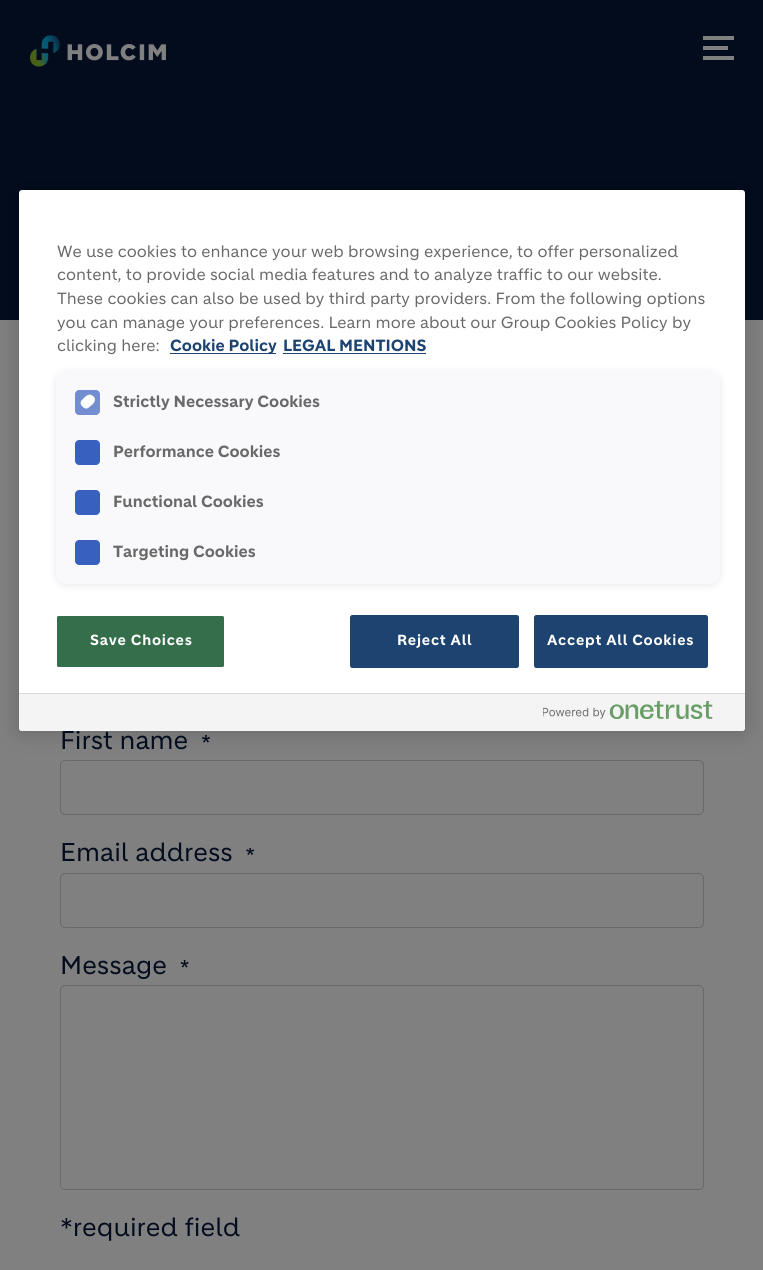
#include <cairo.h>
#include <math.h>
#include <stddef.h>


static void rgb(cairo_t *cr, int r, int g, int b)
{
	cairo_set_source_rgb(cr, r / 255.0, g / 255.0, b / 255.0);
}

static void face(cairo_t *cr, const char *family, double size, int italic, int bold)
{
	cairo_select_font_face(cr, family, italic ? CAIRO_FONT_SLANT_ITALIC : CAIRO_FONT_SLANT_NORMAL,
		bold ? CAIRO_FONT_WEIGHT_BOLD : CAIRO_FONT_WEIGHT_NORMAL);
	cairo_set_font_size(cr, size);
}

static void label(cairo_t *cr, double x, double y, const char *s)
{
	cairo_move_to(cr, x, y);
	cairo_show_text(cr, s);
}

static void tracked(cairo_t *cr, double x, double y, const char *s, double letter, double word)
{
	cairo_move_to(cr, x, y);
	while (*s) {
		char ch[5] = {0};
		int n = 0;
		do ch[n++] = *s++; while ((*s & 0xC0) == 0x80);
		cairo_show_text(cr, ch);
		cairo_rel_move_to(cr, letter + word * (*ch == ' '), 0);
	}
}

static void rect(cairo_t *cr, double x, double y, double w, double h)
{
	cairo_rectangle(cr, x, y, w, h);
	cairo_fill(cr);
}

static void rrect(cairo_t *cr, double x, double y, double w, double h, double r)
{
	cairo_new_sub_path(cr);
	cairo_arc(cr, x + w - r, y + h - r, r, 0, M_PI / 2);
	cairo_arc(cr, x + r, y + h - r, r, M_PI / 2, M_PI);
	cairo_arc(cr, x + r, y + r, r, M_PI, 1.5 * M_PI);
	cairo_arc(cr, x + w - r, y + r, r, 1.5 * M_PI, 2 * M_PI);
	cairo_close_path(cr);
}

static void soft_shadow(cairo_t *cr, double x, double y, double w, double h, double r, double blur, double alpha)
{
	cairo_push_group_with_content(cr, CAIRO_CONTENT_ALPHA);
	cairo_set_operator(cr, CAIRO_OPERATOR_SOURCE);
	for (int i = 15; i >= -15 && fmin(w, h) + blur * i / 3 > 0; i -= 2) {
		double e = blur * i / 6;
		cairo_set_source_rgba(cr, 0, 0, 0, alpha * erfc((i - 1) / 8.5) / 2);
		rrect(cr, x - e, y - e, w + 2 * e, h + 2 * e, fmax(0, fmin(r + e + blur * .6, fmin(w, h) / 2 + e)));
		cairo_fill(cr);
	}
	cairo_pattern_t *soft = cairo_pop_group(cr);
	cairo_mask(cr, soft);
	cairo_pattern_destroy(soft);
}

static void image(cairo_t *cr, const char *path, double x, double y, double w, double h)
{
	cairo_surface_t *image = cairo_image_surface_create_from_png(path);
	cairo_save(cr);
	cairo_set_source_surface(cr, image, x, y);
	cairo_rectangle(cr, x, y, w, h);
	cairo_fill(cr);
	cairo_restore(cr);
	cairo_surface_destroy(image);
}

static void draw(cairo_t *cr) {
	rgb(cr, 128, 128, 128);
	cairo_paint(cr);
	rgb(cr, 2, 12, 29);
	rect(cr, 0, 0, 763, 320);
	image(cr, "image2.png", 202, 735, 8, 8);
	rrect(cr, 60.5, 760.5, 643, 54, 4.5);
	rgb(cr, 103, 106, 109);
	cairo_set_line_width(cr, 1);
	cairo_stroke(cr);
	rgb(cr, 0, 0, 0);
	soft_shadow(cr, 19, 190, 726, 541, 3, 11, 0.2);
	face(cr, "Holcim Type", 25, 0, 0);
	rgb(cr, 2, 12, 29);
	label(cr, 60, 749, "First name");
	rgb(cr, 255, 255, 255);
	rrect(cr, 19, 190, 726, 541, 3);
	cairo_fill(cr);
	face(cr, "Holcim Type", 15.75, 0, 0);
	rgb(cr, 105, 105, 105);
	label(cr, 57, 257, "We use cookies to enhance your web browsing experience, to offer personalized");
	label(cr, 57, 280, "content, to provide social media features and to analyze traffic to our website.");
	label(cr, 57, 304, "These cookies can also be used by third party providers. From the following options");
	label(cr, 57, 328, "you can manage your preferences. Learn more about our Group Cookies Policy by");
	label(cr, 57, 351, "clicking here:");
	rgb(cr, 29, 67, 112);
	rect(cr, 170, 353, 106, 1);
	face(cr, "Holcim Type", 15.75, 0, 1);
	label(cr, 170, 351, "Cookie Policy");
	label(cr, 283, 351, "LEGAL MENTIONS");
	rect(cr, 283, 353, 143, 1);
	rgb(cr, 0, 0, 0);
	soft_shadow(cr, 56, 373, 664, 212, 10, 4, 0.1);
	rgb(cr, 249, 249, 252);
	rrect(cr, 56, 371, 664, 213, 10);
	cairo_fill(cr);
	rgb(cr, 114, 142, 209);
	cairo_new_path(cr);
	cairo_move_to(cr, 79, 390);
	cairo_line_to(cr, 96, 390);
	cairo_curve_to(cr, 98, 390, 100, 392, 100, 394);
	cairo_line_to(cr, 100, 411);
	cairo_curve_to(cr, 100, 413, 98, 415, 96, 415);
	cairo_line_to(cr, 79, 415);
	cairo_curve_to(cr, 77, 415, 75, 413, 75, 411);
	cairo_line_to(cr, 75, 394);
	cairo_curve_to(cr, 75, 392, 77, 390, 79, 390);
	cairo_close_path(cr);
	cairo_fill(cr);
	rgb(cr, 253, 253, 254);
	cairo_new_path(cr);
	cairo_move_to(cr, 81.5, 400.5);
	cairo_curve_to(cr, 84.5, 397.5, 88.5, 392, 93, 396);
	cairo_curve_to(cr, 94, 396.5, 95, 398, 95, 399.5);
	cairo_curve_to(cr, 95.5, 402.5, 89.5, 407.5, 87, 408.5);
	cairo_curve_to(cr, 85, 409, 82.5, 407, 81.5, 405.5);
	cairo_curve_to(cr, 80.5, 404, 80, 402, 81.5, 400.5);
	cairo_close_path(cr);
	cairo_fill(cr);
	rgb(cr, 105, 105, 105);
	label(cr, 113, 407, "Strictly Necessary Cookies");
	rgb(cr, 56, 96, 190);
	cairo_new_path(cr);
	cairo_move_to(cr, 79, 440);
	cairo_line_to(cr, 96, 440);
	cairo_curve_to(cr, 98, 440, 100, 442, 100, 444);
	cairo_line_to(cr, 100, 461);
	cairo_curve_to(cr, 100, 463, 98, 465, 96, 465);
	cairo_line_to(cr, 79, 465);
	cairo_curve_to(cr, 77, 465, 75, 463, 75, 461);
	cairo_line_to(cr, 75, 444);
	cairo_curve_to(cr, 75, 442, 77, 440, 79, 440);
	cairo_close_path(cr);
	cairo_fill(cr);
	rgb(cr, 105, 105, 105);
	label(cr, 113, 457, "Performance Cookies");
	rgb(cr, 56, 96, 190);
	cairo_new_path(cr);
	cairo_move_to(cr, 79, 490);
	cairo_line_to(cr, 96, 490);
	cairo_curve_to(cr, 98, 490, 100, 492, 100, 494);
	cairo_line_to(cr, 100, 511);
	cairo_curve_to(cr, 100, 513, 98, 515, 96, 515);
	cairo_line_to(cr, 79, 515);
	cairo_curve_to(cr, 77, 515, 75, 513, 75, 511);
	cairo_line_to(cr, 75, 494);
	cairo_curve_to(cr, 75, 492, 77, 490, 79, 490);
	cairo_close_path(cr);
	cairo_fill(cr);
	rgb(cr, 105, 105, 105);
	label(cr, 113, 507, "Functional Cookies");
	rgb(cr, 56, 96, 190);
	cairo_new_path(cr);
	cairo_move_to(cr, 79, 540);
	cairo_line_to(cr, 96, 540);
	cairo_curve_to(cr, 98, 540, 100, 542, 100, 544);
	cairo_line_to(cr, 100, 561);
	cairo_curve_to(cr, 100, 563, 98, 565, 96, 565);
	cairo_line_to(cr, 79, 565);
	cairo_curve_to(cr, 77, 565, 75, 563, 75, 561);
	cairo_line_to(cr, 75, 544);
	cairo_curve_to(cr, 75, 542, 77, 540, 79, 540);
	cairo_close_path(cr);
	cairo_fill(cr);
	rgb(cr, 105, 105, 105);
	label(cr, 113, 557, "Targeting Cookies");
	rgb(cr, 52, 110, 74);
	rrect(cr, 56.5, 615.5, 168, 52, 2);
	cairo_fill_preserve(cr);
	rgb(cr, 255, 255, 255);
	cairo_stroke(cr);
	face(cr, "Holcim Type", 14.25, 0, 1);
	tracked(cr, 90, 645, "Save Choices", 0.75, 0);
	rgb(cr, 29, 67, 112);
	rrect(cr, 350.5, 615.5, 168, 52, 2);
	cairo_fill_preserve(cr);
	cairo_stroke(cr);
	rgb(cr, 255, 255, 255);
	tracked(cr, 397, 645, "Reject All", 0.75, 0);
	rgb(cr, 29, 67, 112);
	rrect(cr, 534.5, 615.5, 173, 52, 2);
	cairo_fill_preserve(cr);
	cairo_stroke(cr);
	rgb(cr, 255, 255, 255);
	tracked(cr, 547, 645, "Accept All Cookies", 0.75, 0);
	rgb(cr, 244, 244, 244);
	cairo_new_path(cr);
	cairo_move_to(cr, 19, 693);
	cairo_line_to(cr, 745, 693);
	cairo_line_to(cr, 745, 728);
	cairo_curve_to(cr, 745, 729.5, 743.5, 731, 742, 731);
	cairo_line_to(cr, 22, 731);
	cairo_curve_to(cr, 20.5, 731, 19, 729.5, 19, 728);
	cairo_close_path(cr);
	cairo_fill(cr);
	rgb(cr, 216, 216, 216);
	rect(cr, 19, 693, 726, 1);
	image(cr, "image0.png", 543, 701, 170, 18);
	image(cr, "image1.png", 30, 35, 136, 32);
	rgb(cr, 128, 128, 128);
	rect(cr, 703, 36, 31, 4);
	rect(cr, 703, 46, 25, 4);
	rect(cr, 703, 56, 31, 4);
	face(cr, "Holcim Type", 25, 0, 0);
	rgb(cr, 2, 12, 29);
	label(cr, 60, 861, "Email address");
	image(cr, "image3.png", 246, 848, 8, 7);
	rrect(cr, 60.5, 873.5, 643, 54, 4.5);
	rgb(cr, 103, 106, 109);
	cairo_stroke(cr);
	rgb(cr, 2, 12, 29);
	label(cr, 60, 974, "Message");
	image(cr, "image4.png", 180, 960, 9, 8);
	rrect(cr, 60.5, 985.5, 643, 204, 4.5);
	rgb(cr, 103, 106, 109);
	cairo_stroke(cr);
	rgb(cr, 2, 12, 29);
	label(cr, 60, 1236, "*required field");
}

int main(void) {
	cairo_surface_t *surface = cairo_image_surface_create(CAIRO_FORMAT_RGB24, 763, 1270);
	cairo_t *cr = cairo_create(surface);
	cairo_font_options_t *options = cairo_font_options_create();
	cairo_font_options_set_hint_metrics(options, CAIRO_HINT_METRICS_OFF);
	cairo_font_options_set_hint_style(options, CAIRO_HINT_STYLE_NONE);
	cairo_set_font_options(cr, options);
	cairo_set_miter_limit(cr, 4);
	draw(cr);
	cairo_surface_write_to_png(surface, "render.png");
	cairo_font_options_destroy(options);
	cairo_destroy(cr);
	cairo_surface_destroy(surface);
	return 0;
}
